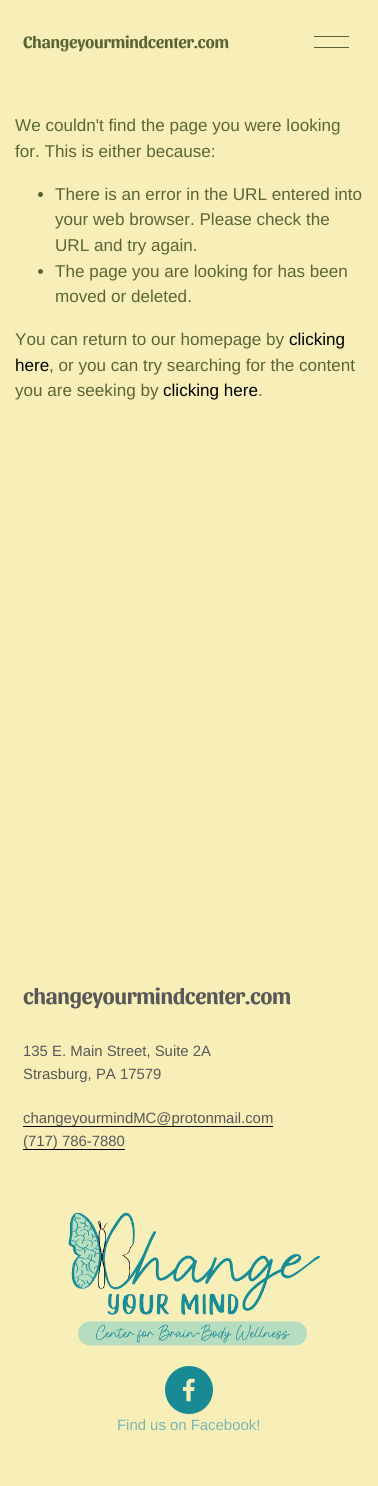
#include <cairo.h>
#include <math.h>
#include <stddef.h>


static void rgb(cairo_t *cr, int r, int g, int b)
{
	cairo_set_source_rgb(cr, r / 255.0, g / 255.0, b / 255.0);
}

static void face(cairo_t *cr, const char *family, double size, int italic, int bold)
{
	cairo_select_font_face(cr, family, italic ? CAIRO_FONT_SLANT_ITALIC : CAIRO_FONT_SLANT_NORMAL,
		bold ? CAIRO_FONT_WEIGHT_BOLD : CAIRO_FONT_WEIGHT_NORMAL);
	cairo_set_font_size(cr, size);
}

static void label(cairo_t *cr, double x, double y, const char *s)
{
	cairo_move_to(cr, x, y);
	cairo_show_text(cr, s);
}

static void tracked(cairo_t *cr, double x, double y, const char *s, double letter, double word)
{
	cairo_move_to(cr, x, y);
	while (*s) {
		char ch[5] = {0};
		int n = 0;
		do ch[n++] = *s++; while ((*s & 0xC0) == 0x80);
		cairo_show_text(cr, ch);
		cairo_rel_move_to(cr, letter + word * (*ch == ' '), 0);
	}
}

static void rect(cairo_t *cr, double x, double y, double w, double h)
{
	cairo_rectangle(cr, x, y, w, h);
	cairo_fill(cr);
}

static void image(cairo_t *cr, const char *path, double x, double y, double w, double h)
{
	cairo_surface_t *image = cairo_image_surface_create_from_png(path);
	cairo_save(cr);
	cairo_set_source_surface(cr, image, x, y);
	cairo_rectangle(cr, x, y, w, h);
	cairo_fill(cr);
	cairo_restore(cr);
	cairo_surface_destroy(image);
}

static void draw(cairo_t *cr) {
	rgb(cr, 248, 239, 184);
	cairo_paint(cr);
	face(cr, "Sansita", 17.1, 0, 1);
	rgb(cr, 90, 101, 55);
	tracked(cr, 23, 48, "Changeyourmindcenter.com", -0.3, 0);
	rect(cr, 314, 36, 35, 1);
	rect(cr, 314, 47, 35, 1);
	face(cr, "Liberation Sans", 17.1, 0, 0);
	label(cr, 15, 131, "We couldn't find the page you were looking");
	label(cr, 15, 157, "for. This is either because:");
	cairo_new_path(cr);
	cairo_arc(cr, 40.5, 194.5, 2.5, 0, 2 * M_PI);
	cairo_fill(cr);
	label(cr, 55, 200, "There is an error in the URL entered into");
	label(cr, 55, 225, "your web browser. Please check the");
	label(cr, 55, 251, "URL and try again.");
	cairo_new_path(cr);
	cairo_arc(cr, 40.5, 271.5, 2.5, 0, 2 * M_PI);
	cairo_fill(cr);
	label(cr, 55, 277, "The page you are looking for has been");
	label(cr, 55, 302, "moved or deleted.");
	label(cr, 15, 345, "You can return to our homepage by");
	rgb(cr, 0, 0, 0);
	label(cr, 289, 345, "clicking");
	label(cr, 15, 371, "here");
	rgb(cr, 90, 101, 55);
	label(cr, 49, 371, ", or you can try searching for the content");
	label(cr, 15, 396, "you are seeking by");
	rgb(cr, 0, 0, 0);
	label(cr, 163, 396, "clicking here");
	rgb(cr, 90, 101, 55);
	label(cr, 258, 396, ".");
	face(cr, "Sansita", 22.5, 0, 1);
	rgb(cr, 88, 88, 88);
	tracked(cr, 23, 1004, "changeyourmindcenter.com", -0.45, 0);
	face(cr, "Liberation Sans", 14.9, 0, 0);
	label(cr, 23, 1056, "135 E. Main Street, Suite 2A");
	label(cr, 23, 1079, "Strasburg, PA 17579");
	rgb(cr, 0, 0, 0);
	rect(cr, 23, 1126, 250, 1);
	rgb(cr, 88, 88, 88);
	label(cr, 23, 1123, "changeyourmindMC@protonmail.com");
	rgb(cr, 0, 0, 0);
	rect(cr, 23, 1149, 102, 1);
	rgb(cr, 88, 88, 88);
	label(cr, 23, 1146, "(717) 786-7880");
	image(cr, "image0.png", 68, 1212, 252, 134);
	rgb(cr, 23, 138, 147);
	cairo_arc(cr, 189, 1390, 24, 0, 2 * M_PI);
	cairo_fill(cr);
	image(cr, "image1.png", 183, 1378, 12, 24);
	rgb(cr, 123, 181, 178);
	label(cr, 117, 1430, "Find us on Facebook!");
}

int main(void) {
	cairo_surface_t *surface = cairo_image_surface_create(CAIRO_FORMAT_RGB24, 378, 1486);
	cairo_t *cr = cairo_create(surface);
	cairo_font_options_t *options = cairo_font_options_create();
	cairo_font_options_set_hint_metrics(options, CAIRO_HINT_METRICS_OFF);
	cairo_font_options_set_hint_style(options, CAIRO_HINT_STYLE_NONE);
	cairo_set_font_options(cr, options);
	cairo_set_miter_limit(cr, 4);
	draw(cr);
	cairo_surface_write_to_png(surface, "render.png");
	cairo_font_options_destroy(options);
	cairo_destroy(cr);
	cairo_surface_destroy(surface);
	return 0;
}
